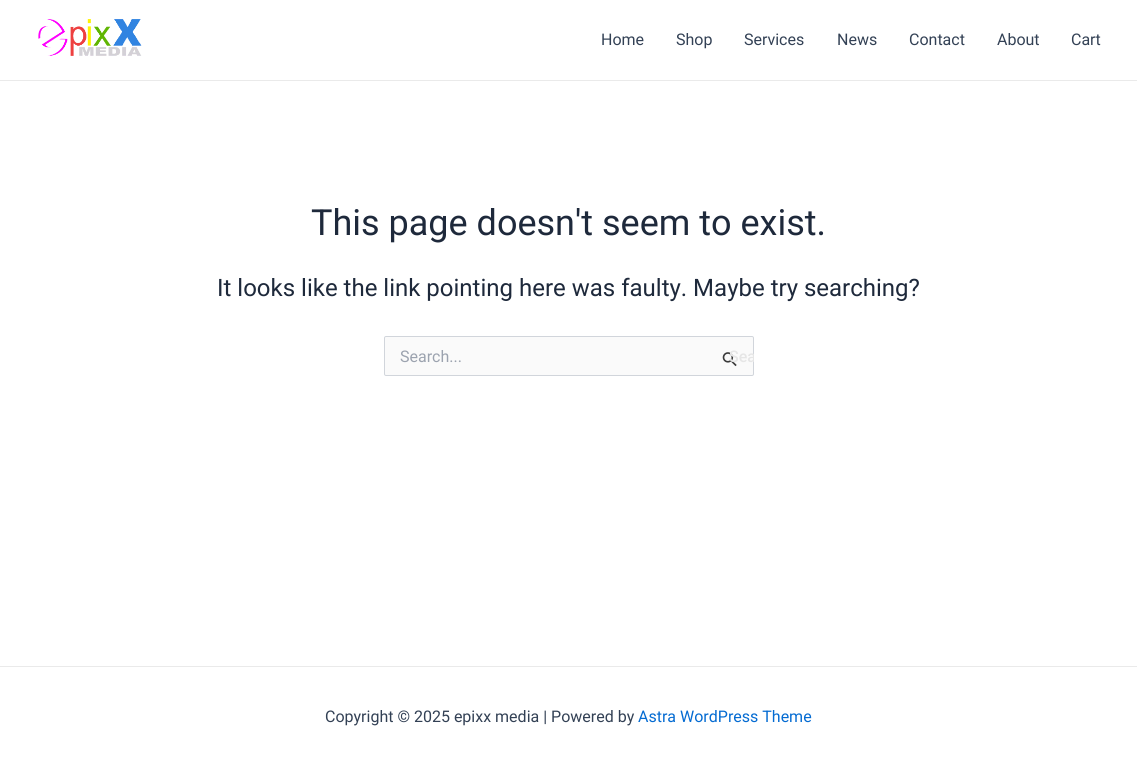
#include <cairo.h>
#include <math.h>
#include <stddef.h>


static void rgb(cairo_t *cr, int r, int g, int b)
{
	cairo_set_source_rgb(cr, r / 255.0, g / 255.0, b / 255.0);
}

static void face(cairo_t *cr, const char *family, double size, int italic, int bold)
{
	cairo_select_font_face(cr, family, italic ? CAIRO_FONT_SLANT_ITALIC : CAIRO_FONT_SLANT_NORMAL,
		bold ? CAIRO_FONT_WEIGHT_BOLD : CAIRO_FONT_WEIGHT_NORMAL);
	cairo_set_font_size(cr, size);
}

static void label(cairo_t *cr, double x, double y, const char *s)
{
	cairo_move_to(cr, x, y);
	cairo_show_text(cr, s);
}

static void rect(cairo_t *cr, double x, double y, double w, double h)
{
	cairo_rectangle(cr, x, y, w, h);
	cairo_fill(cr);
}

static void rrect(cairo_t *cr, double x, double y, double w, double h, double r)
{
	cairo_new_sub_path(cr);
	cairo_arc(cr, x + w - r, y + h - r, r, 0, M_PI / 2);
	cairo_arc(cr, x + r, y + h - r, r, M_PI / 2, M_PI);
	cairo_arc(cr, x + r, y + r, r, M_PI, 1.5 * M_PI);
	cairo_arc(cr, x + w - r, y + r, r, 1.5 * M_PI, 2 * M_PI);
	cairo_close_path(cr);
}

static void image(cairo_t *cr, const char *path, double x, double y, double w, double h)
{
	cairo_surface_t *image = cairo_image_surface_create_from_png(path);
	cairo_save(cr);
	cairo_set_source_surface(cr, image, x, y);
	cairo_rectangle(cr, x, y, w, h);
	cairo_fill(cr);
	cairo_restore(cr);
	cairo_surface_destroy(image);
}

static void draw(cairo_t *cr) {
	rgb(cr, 255, 255, 255);
	cairo_paint(cr);
	rgb(cr, 234, 234, 234);
	rect(cr, 0, 80, 1137, 1);
	image(cr, "image0.png", 38, 19, 104, 37);
	face(cr, "Roboto", 16, 0, 0);
	rgb(cr, 51, 65, 85);
	label(cr, 601, 45, "Home");
	label(cr, 676, 45, "Shop");
	label(cr, 744, 45, "Services");
	label(cr, 837, 45, "News");
	label(cr, 909, 45, "Contact");
	label(cr, 997, 45, "About");
	label(cr, 1071, 45, "Cart");
	face(cr, "Roboto", 36, 0, 0);
	rgb(cr, 30, 41, 59);
	label(cr, 311, 235, "This page doesn't seem to exist.");
	face(cr, "Roboto", 24, 0, 0);
	label(cr, 217, 296, "It looks like the link pointing here was faulty. Maybe try searching?");
	rgb(cr, 250, 250, 250);
	rrect(cr, 384.5, 336.5, 369, 39, 1.5);
	cairo_fill_preserve(cr);
	rgb(cr, 209, 213, 219);
	cairo_set_line_width(cr, 1);
	cairo_stroke(cr);
	face(cr, "Roboto", 16, 0, 0);
	rgb(cr, 156, 163, 175);
	label(cr, 400, 362, "Search...");
	image(cr, "image1.png", 722, 352, 15, 15);
	cairo_save(cr);
	rrect(cr, 709, 336, 45, 42, 2);
	cairo_clip(cr);
	face(cr, "Roboto Medium", 16, 0, 0);
	rgb(cr, 230, 230, 230);
	label(cr, 729, 362, "Sea");
	cairo_restore(cr);
	rgb(cr, 234, 234, 234);
	rect(cr, 0, 666, 1137, 1);
	rgb(cr, 51, 65, 85);
	label(cr, 325, 722, "Copyright © 2025 epixx media | Powered by");
	rgb(cr, 4, 107, 210);
	label(cr, 638, 722, "Astra WordPress Theme");
}

int main(void) {
	cairo_surface_t *surface = cairo_image_surface_create(CAIRO_FORMAT_RGB24, 1137, 767);
	cairo_t *cr = cairo_create(surface);
	cairo_font_options_t *options = cairo_font_options_create();
	cairo_font_options_set_hint_metrics(options, CAIRO_HINT_METRICS_OFF);
	cairo_font_options_set_hint_style(options, CAIRO_HINT_STYLE_NONE);
	cairo_set_font_options(cr, options);
	cairo_set_miter_limit(cr, 4);
	draw(cr);
	cairo_surface_write_to_png(surface, "render.png");
	cairo_font_options_destroy(options);
	cairo_destroy(cr);
	cairo_surface_destroy(surface);
	return 0;
}
